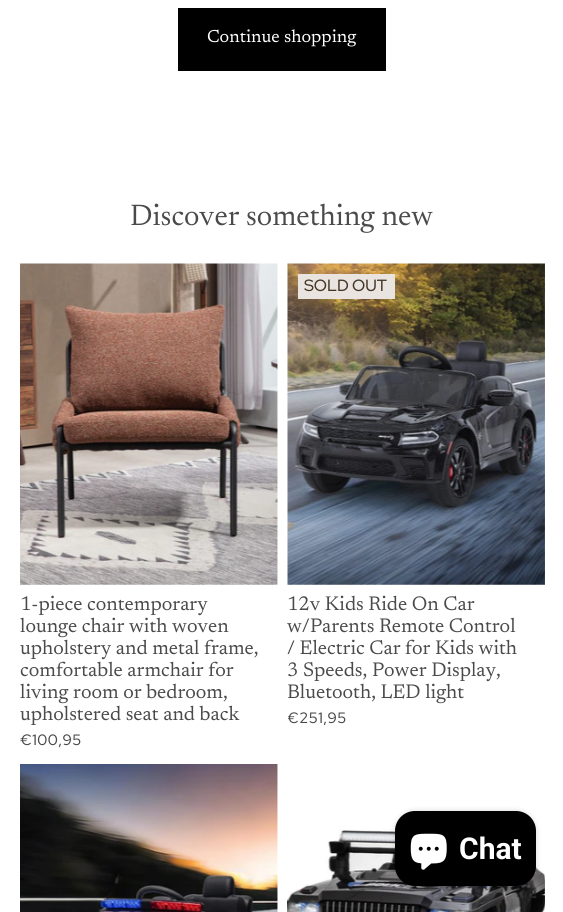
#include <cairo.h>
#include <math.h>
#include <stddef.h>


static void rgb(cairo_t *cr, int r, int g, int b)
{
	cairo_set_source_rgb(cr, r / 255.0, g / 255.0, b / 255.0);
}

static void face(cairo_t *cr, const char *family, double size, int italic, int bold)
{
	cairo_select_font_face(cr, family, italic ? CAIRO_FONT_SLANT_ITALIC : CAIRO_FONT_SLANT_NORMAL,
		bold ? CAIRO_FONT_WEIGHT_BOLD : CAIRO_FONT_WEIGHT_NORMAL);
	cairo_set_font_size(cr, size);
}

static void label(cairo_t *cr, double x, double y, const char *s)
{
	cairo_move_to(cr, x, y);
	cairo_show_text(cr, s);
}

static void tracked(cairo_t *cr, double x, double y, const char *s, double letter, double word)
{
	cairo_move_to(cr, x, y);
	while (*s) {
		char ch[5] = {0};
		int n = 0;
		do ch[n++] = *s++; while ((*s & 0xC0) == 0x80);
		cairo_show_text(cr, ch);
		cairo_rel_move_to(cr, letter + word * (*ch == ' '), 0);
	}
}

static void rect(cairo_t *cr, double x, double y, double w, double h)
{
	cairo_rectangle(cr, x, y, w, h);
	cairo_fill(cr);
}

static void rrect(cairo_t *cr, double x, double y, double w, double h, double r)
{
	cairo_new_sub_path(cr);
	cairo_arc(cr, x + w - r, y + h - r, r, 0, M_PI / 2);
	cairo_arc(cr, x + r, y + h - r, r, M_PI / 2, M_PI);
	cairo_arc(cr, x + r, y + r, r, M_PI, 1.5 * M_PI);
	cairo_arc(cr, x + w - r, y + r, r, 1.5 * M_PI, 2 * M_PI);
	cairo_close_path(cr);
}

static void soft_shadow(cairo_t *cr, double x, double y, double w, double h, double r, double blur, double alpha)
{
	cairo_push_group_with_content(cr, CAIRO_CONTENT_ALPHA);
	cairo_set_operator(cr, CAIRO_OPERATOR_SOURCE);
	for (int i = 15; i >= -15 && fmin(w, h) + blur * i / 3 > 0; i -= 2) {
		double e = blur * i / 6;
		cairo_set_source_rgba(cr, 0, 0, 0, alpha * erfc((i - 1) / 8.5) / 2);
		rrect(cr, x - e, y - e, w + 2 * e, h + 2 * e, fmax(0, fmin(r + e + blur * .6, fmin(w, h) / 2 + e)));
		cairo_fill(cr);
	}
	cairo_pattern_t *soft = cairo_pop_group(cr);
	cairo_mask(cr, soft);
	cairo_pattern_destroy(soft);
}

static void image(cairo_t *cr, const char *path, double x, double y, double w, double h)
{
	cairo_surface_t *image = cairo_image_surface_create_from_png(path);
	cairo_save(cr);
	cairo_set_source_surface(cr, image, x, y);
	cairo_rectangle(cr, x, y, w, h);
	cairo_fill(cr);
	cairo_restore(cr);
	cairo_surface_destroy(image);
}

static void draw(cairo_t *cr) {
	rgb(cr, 255, 255, 255);
	cairo_paint(cr);
	rgb(cr, 0, 0, 0);
	rect(cr, 178, 8, 208, 63);
	face(cr, "Newsreader", 17.5, 0, 0);
	rgb(cr, 255, 255, 255);
	label(cr, 207, 42, "Continue shopping");
	face(cr, "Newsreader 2", 30, 0, 0);
	rgb(cr, 74, 74, 74);
	label(cr, 130, 225, "Discover something new");
	image(cr, "image0.png", 20, 263, 258, 322);
	face(cr, "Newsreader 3", 20, 0, 0);
	label(cr, 20, 610, "1-piece contemporary");
	label(cr, 20, 632, "lounge chair with woven");
	label(cr, 20, 654, "upholstery and metal frame,");
	label(cr, 20, 676, "comfortable armchair for");
	label(cr, 20, 698, "living room or bedroom,");
	label(cr, 20, 720, "upholstered seat and back");
	face(cr, "Red Hat Display Medium", 15, 0, 0);
	tracked(cr, 20, 745, "€100,95", 0.5, 0);
	image(cr, "image1.png", 287, 263, 258, 322);
	rgb(cr, 233, 228, 224);
	rect(cr, 298, 274, 97, 25);
	face(cr, "Red Hat Display Medium", 16.25, 0, 0);
	rgb(cr, 67, 54, 37);
	label(cr, 304, 291, "SOLD OUT");
	face(cr, "Newsreader 3", 20, 0, 0);
	rgb(cr, 74, 74, 74);
	label(cr, 287, 610, "12v Kids Ride On Car");
	label(cr, 287, 632, "w/Parents Remote Control");
	label(cr, 287, 654, "/ Electric Car for Kids with");
	label(cr, 287, 676, "3 Speeds, Power Display,");
	label(cr, 287, 698, "Bluetooth, LED light");
	cairo_save(cr);
	cairo_rectangle(cr, 288, 264, 256, 485);
	cairo_clip(cr);
	face(cr, "Red Hat Display Medium", 15, 0, 0);
	tracked(cr, 287, 723, "€251,95", 0.5, 0);
	cairo_restore(cr);
	image(cr, "image2.png", 20, 764, 258, 148);
	image(cr, "image3.png", 287, 810, 258, 102);
	rgb(cr, 0, 0, 0);
	soft_shadow(cr, 395, 811, 141, 75, 20, 3, 0.15);
	rgb(cr, 0, 0, 0);
	rrect(cr, 395, 811, 141, 75, 20);
	cairo_fill(cr);
	image(cr, "image4.png", 410, 833, 37, 37);
	face(cr, "Roboto", 30, 0, 1);
	rgb(cr, 255, 255, 255);
	label(cr, 459, 859, "Chat");
}

int main(void) {
	cairo_surface_t *surface = cairo_image_surface_create(CAIRO_FORMAT_RGB24, 563, 912);
	cairo_t *cr = cairo_create(surface);
	cairo_font_options_t *options = cairo_font_options_create();
	cairo_font_options_set_hint_metrics(options, CAIRO_HINT_METRICS_OFF);
	cairo_font_options_set_hint_style(options, CAIRO_HINT_STYLE_NONE);
	cairo_set_font_options(cr, options);
	cairo_set_miter_limit(cr, 4);
	draw(cr);
	cairo_surface_write_to_png(surface, "render.png");
	cairo_font_options_destroy(options);
	cairo_destroy(cr);
	cairo_surface_destroy(surface);
	return 0;
}
